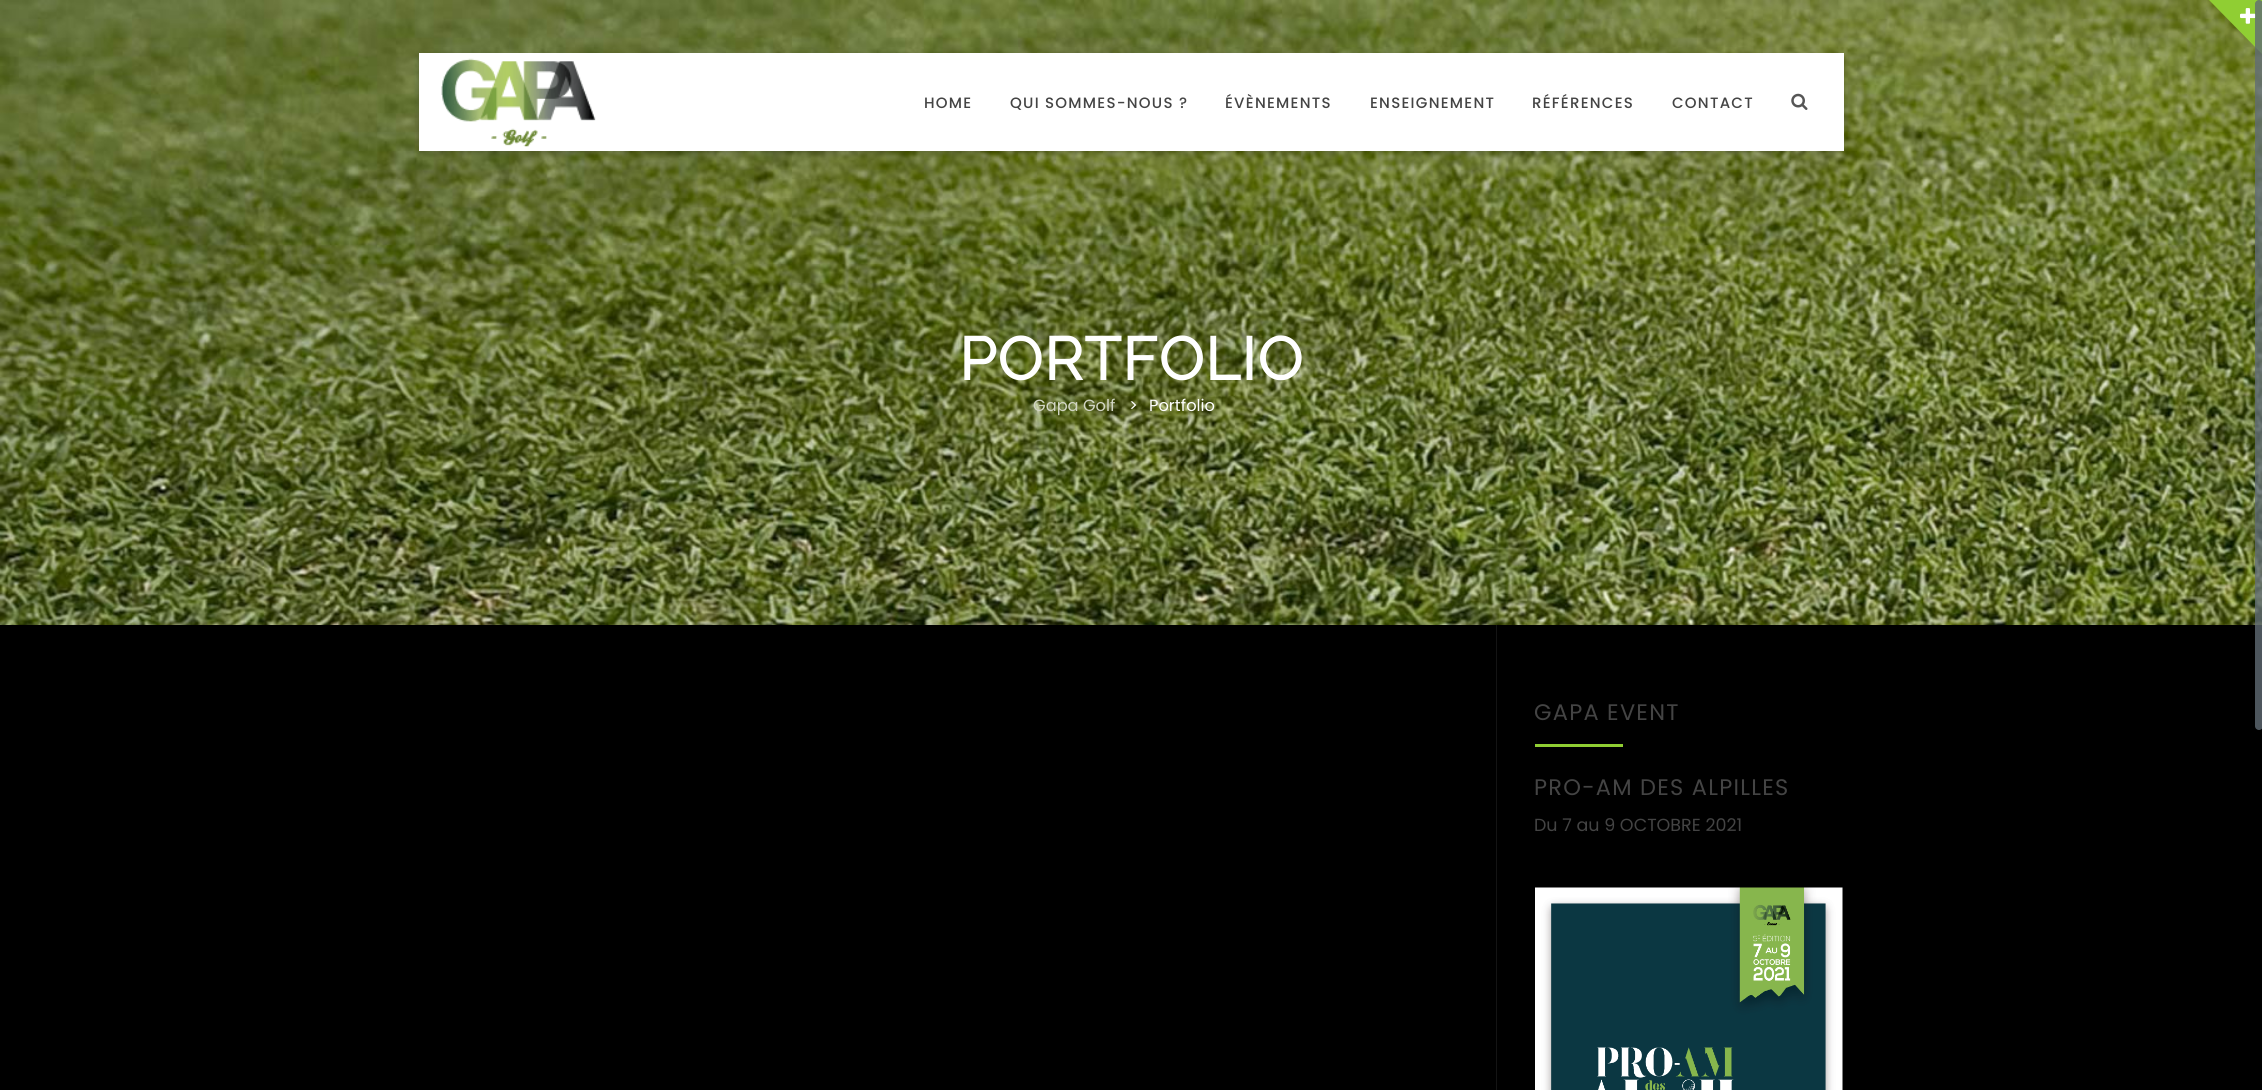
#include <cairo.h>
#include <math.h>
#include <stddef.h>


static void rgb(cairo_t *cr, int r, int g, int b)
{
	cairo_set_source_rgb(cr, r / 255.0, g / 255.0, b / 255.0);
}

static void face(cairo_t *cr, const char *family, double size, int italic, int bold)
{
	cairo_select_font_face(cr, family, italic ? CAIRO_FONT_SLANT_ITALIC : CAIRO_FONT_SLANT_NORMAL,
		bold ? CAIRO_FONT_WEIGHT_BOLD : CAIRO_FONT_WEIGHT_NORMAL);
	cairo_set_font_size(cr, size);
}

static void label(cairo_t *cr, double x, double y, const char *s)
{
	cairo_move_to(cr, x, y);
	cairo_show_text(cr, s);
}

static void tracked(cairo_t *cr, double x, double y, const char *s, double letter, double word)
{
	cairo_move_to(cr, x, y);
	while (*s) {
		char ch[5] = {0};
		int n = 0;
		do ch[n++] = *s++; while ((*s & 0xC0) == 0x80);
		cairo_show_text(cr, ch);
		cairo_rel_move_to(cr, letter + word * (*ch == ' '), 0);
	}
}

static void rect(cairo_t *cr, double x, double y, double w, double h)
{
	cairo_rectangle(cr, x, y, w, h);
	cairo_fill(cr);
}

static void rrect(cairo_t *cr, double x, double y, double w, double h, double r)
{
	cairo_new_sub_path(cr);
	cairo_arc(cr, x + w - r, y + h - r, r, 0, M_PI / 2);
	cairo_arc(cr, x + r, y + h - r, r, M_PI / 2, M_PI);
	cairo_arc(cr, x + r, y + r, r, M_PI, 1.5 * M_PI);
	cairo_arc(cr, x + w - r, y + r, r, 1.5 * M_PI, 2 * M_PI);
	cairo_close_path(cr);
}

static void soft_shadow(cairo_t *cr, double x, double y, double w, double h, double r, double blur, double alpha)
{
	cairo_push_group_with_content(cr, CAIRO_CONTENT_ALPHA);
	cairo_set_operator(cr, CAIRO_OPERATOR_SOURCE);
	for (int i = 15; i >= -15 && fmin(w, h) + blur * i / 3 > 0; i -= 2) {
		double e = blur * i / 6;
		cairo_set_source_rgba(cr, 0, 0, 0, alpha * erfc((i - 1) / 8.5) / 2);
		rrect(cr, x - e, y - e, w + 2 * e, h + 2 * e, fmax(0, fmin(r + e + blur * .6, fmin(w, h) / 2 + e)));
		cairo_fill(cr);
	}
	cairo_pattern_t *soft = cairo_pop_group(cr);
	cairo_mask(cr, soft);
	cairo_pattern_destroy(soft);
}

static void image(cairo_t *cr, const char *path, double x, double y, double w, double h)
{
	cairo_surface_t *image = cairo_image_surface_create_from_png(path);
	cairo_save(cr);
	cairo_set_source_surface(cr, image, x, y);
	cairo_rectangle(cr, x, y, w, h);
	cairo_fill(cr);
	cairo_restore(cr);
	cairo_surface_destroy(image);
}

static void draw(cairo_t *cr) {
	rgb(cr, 0, 0, 0);
	cairo_paint(cr);
	image(cr, "image3.png", 0, 0, 2262, 625);
	rgb(cr, 144, 206, 51);
	cairo_new_path(cr);
	cairo_move_to(cr, 2209, 0);
	cairo_line_to(cr, 2262, 0);
	cairo_line_to(cr, 2262, 54);
	cairo_close_path(cr);
	cairo_fill(cr);
	image(cr, "image0.png", 2240, 8, 16, 16);
	rgb(cr, 0, 0, 0);
	soft_shadow(cr, 419, 54, 1425, 99, 0, 3, 0.2);
	rgb(cr, 255, 255, 255);
	rect(cr, 419, 53, 1425, 98);
	image(cr, "image1.png", 441, 58, 155, 89);
	face(cr, "Poppins Medium", 15, 0, 0);
	rgb(cr, 68, 68, 68);
	tracked(cr, 924, 108, "HOME", 1.25, 0);
	tracked(cr, 1010, 108, "QUI SOMMES-NOUS ?", 1.25, 0);
	tracked(cr, 1225, 108, "ÉVÈNEMENTS", 1.25, 0);
	tracked(cr, 1370, 108, "ENSEIGNEMENT", 1.25, 0);
	tracked(cr, 1532, 108, "RÉFÉRENCES", 1.25, 0);
	tracked(cr, 1672, 108, "CONTACT", 1.25, 0);
	image(cr, "image2.png", 1791, 93, 17, 17);
	face(cr, "Raleway", 60, 0, 1);
	rgb(cr, 255, 255, 255);
	tracked(cr, 959, 380, "PORTFOLIO", 1.25, 0);
	face(cr, "Poppins", 16.25, 0, 0);
	rgb(cr, 210, 213, 196);
	label(cr, 1033, 411, "Gapa Golf");
	rgb(cr, 255, 255, 255);
	label(cr, 1129, 411, ">");
	label(cr, 1149, 411, "Portfolio");
	rgb(cr, 20, 20, 20);
	rect(cr, 1496, 625, 1, 465);
	face(cr, "Poppins", 22.5, 0, 0);
	rgb(cr, 68, 68, 68);
	tracked(cr, 1534, 720, "GAPA EVENT", 1.25, 0);
	rgb(cr, 144, 206, 51);
	rect(cr, 1535, 744, 88, 3);
	rgb(cr, 68, 68, 68);
	tracked(cr, 1534, 795, "PRO-AM DES ALPILLES", 1.25, 0);
	face(cr, "Poppins", 17.5, 0, 0);
	label(cr, 1534, 831, "Du 7 au 9 OCTOBRE 2021");
	image(cr, "image4.png", 1535, 887, 308, 203);
	cairo_set_source_rgba(cr, 0.38, 0.42, 0.455, 0.8);
	rrect(cr, 2255, 0, 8, 730, 4);
	cairo_fill(cr);
}

int main(void) {
	cairo_surface_t *surface = cairo_image_surface_create(CAIRO_FORMAT_RGB24, 2262, 1090);
	cairo_t *cr = cairo_create(surface);
	cairo_font_options_t *options = cairo_font_options_create();
	cairo_font_options_set_hint_metrics(options, CAIRO_HINT_METRICS_OFF);
	cairo_font_options_set_hint_style(options, CAIRO_HINT_STYLE_NONE);
	cairo_set_font_options(cr, options);
	cairo_set_miter_limit(cr, 4);
	draw(cr);
	cairo_surface_write_to_png(surface, "render.png");
	cairo_font_options_destroy(options);
	cairo_destroy(cr);
	cairo_surface_destroy(surface);
	return 0;
}
